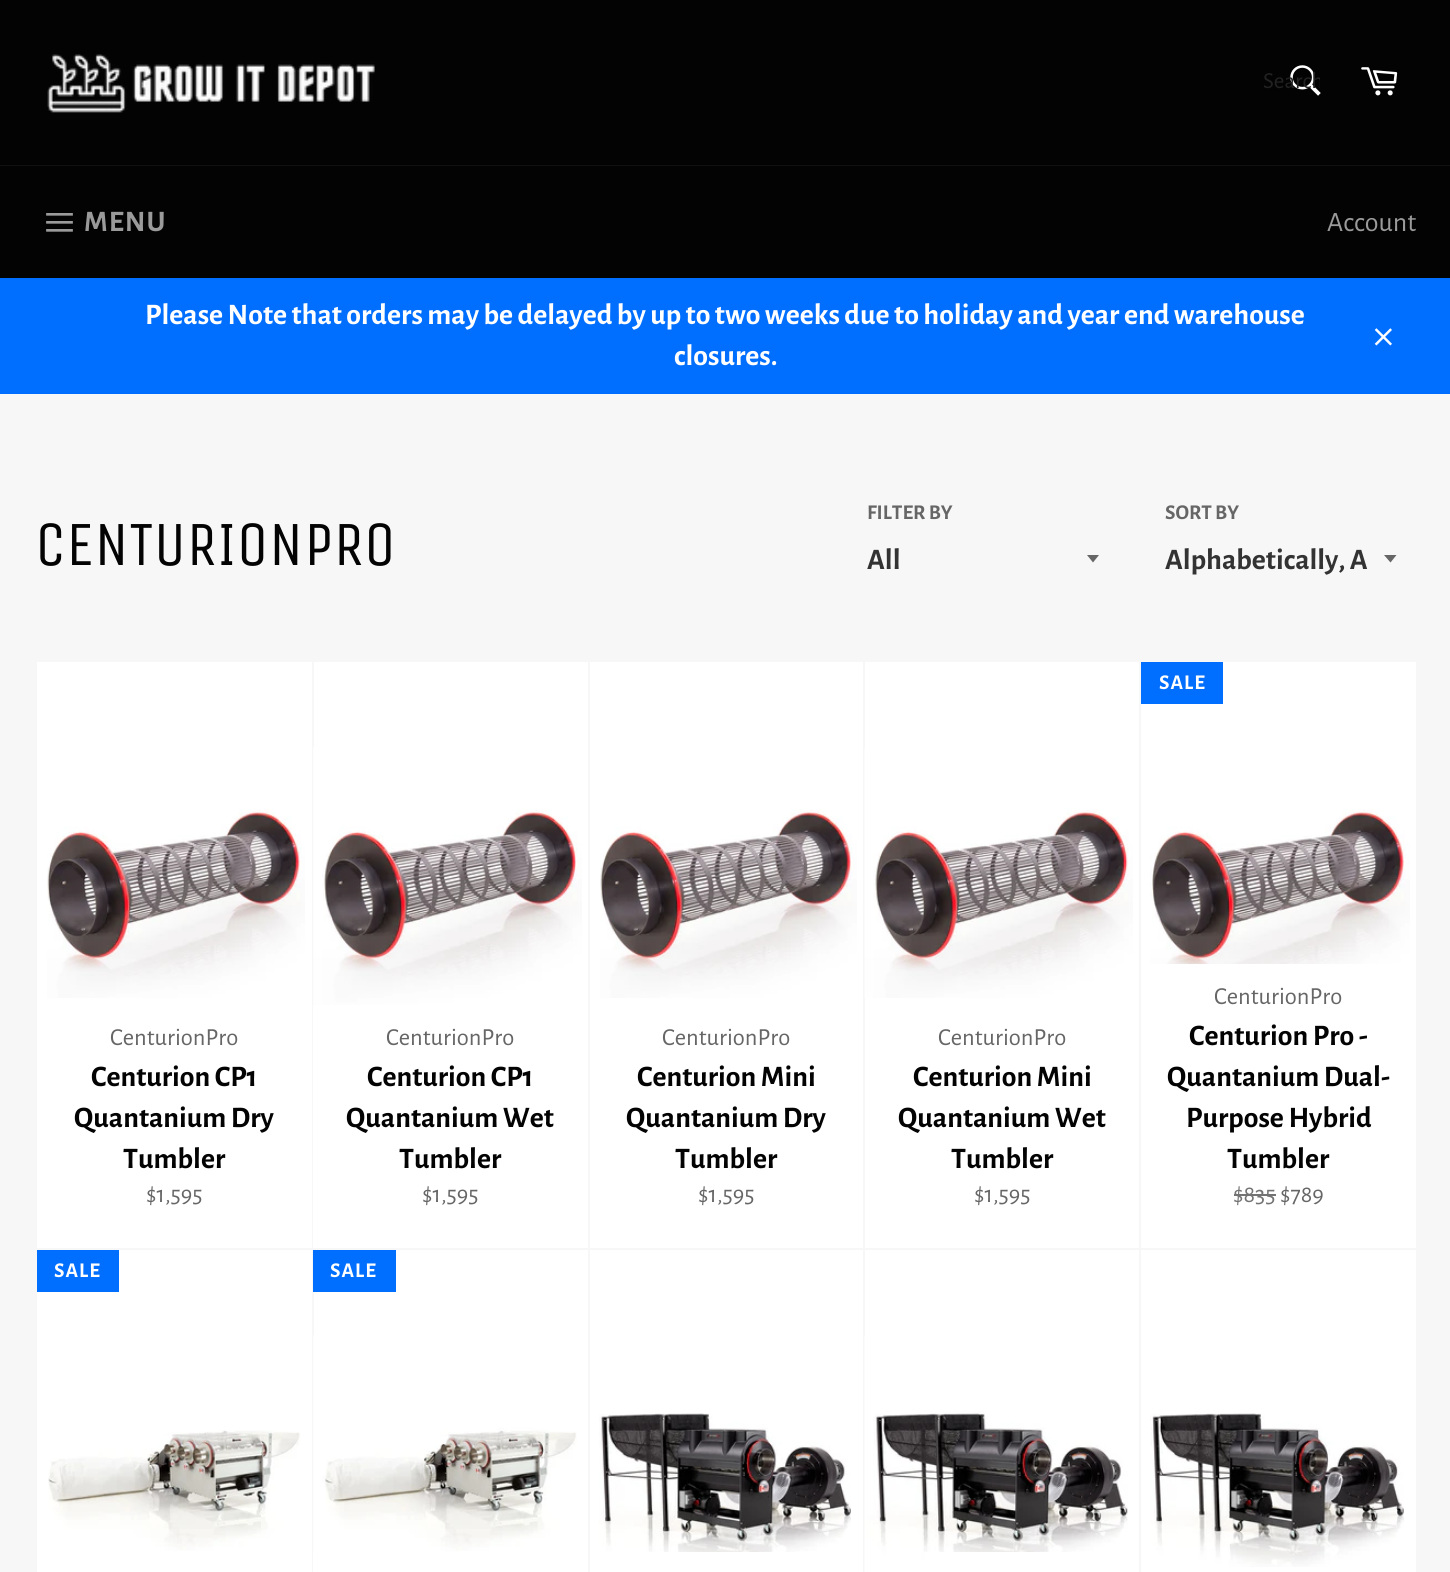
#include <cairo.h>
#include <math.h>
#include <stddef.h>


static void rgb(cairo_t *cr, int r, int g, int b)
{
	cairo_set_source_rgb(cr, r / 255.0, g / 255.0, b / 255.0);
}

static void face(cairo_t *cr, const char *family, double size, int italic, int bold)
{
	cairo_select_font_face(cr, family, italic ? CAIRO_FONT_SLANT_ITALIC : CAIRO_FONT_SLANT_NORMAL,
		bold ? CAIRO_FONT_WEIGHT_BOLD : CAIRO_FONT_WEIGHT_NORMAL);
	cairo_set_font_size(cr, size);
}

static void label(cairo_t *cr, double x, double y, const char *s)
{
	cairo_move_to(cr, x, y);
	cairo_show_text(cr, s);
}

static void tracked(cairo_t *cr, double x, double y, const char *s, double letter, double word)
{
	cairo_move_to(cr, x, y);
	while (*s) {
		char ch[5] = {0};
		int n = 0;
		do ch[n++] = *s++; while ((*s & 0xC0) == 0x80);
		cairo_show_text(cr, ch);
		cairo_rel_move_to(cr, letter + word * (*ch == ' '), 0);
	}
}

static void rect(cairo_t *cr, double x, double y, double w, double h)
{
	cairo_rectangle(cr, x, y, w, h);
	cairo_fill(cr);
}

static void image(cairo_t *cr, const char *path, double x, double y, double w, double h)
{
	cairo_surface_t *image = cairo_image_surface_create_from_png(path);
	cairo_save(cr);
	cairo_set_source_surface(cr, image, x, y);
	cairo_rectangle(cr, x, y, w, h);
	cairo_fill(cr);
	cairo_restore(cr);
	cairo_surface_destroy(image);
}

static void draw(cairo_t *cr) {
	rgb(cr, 247, 247, 247);
	cairo_paint(cr);
	rgb(cr, 3, 3, 3);
	rect(cr, 0, 0, 1450, 165);
	image(cr, "image0.png", 47, 54, 328, 59);
	image(cr, "image1.png", 1290, 65, 31, 31);
	cairo_save(cr);
	cairo_rectangle(cr, 1264, 68, 56, 28);
	cairo_clip(cr);
	face(cr, "Alegreya Sans", 23, 0, 0);
	rgb(cr, 34, 34, 34);
	label(cr, 1263, 88, "Search");
	cairo_restore(cr);
	image(cr, "image2.png", 1361, 67, 37, 29);
	rgb(cr, 16, 16, 16);
	rect(cr, 0, 165, 1450, 1);
	rgb(cr, 3, 3, 3);
	rect(cr, 0, 166, 1450, 112);
	image(cr, "image3.png", 46, 213, 27, 19);
	face(cr, "Alegreya Sans", 29.75, 0, 1);
	rgb(cr, 154, 154, 154);
	tracked(cr, 84, 231, "MENU", 1, 0);
	face(cr, "Alegreya Sans", 28, 0, 0);
	label(cr, 1327, 231, "Account");
	rgb(cr, 0, 110, 255);
	rect(cr, 0, 278, 1450, 116);
	face(cr, "Alegreya Sans", 29.75, 0, 1);
	rgb(cr, 255, 255, 255);
	label(cr, 145, 324, "Please Note that orders may be delayed by up to two weeks due to holiday and year end warehouse");
	label(cr, 674, 365, "closures.");
	image(cr, "image4.png", 1374, 328, 18, 18);
	face(cr, "Unica One", 63, 0, 0);
	rgb(cr, 3, 3, 3);
	label(cr, 35, 565, "CENTURIONPRO");
	face(cr, "Alegreya Sans", 21, 0, 1);
	rgb(cr, 102, 102, 102);
	label(cr, 867, 519, "FILTER BY");
	cairo_new_path(cr);
	cairo_move_to(cr, 1087, 555);
	cairo_line_to(cr, 1093, 562.5);
	cairo_line_to(cr, 1099, 555);
	cairo_close_path(cr);
	cairo_fill(cr);
	face(cr, "Alegreya Sans", 29.75, 0, 1);
	rgb(cr, 51, 51, 51);
	label(cr, 867, 569, "All");
	face(cr, "Alegreya Sans", 21, 0, 1);
	rgb(cr, 102, 102, 102);
	label(cr, 1165, 519, "SORT BY");
	cairo_new_path(cr);
	cairo_move_to(cr, 1384, 555);
	cairo_line_to(cr, 1390.5, 562.5);
	cairo_line_to(cr, 1396.5, 555);
	cairo_close_path(cr);
	cairo_fill(cr);
	face(cr, "Alegreya Sans", 29.75, 0, 1);
	rgb(cr, 51, 51, 51);
	label(cr, 1165, 569, "Alphabetically, A");
	rgb(cr, 255, 255, 255);
	rect(cr, 37, 662, 275, 586);
	image(cr, "image5.png", 47, 809, 258, 189);
	face(cr, "Alegreya Sans", 24.5, 0, 0);
	rgb(cr, 102, 102, 102);
	label(cr, 110, 1045, "CenturionPro");
	face(cr, "Alegreya Sans", 29.75, 0, 1);
	rgb(cr, 3, 3, 3);
	label(cr, 91, 1086, "Centurion CP1");
	label(cr, 74, 1127, "Quantanium Dry");
	label(cr, 123, 1168, "Tumbler");
	face(cr, "Alegreya Sans", 24.5, 0, 0);
	rgb(cr, 102, 102, 102);
	label(cr, 146, 1202, "$1,595");
	rgb(cr, 255, 255, 255);
	rect(cr, 314, 662, 274, 343);
	image(cr, "image6.png", 313, 747, 269, 258);
	rect(cr, 313, 1005, 275, 243);
	rgb(cr, 102, 102, 102);
	label(cr, 386, 1045, "CenturionPro");
	face(cr, "Alegreya Sans", 29.75, 0, 1);
	rgb(cr, 3, 3, 3);
	label(cr, 367, 1086, "Centurion CP1");
	label(cr, 346, 1127, "Quantanium Wet");
	label(cr, 399, 1168, "Tumbler");
	face(cr, "Alegreya Sans", 24.5, 0, 0);
	rgb(cr, 102, 102, 102);
	label(cr, 422, 1202, "$1,595");
	rgb(cr, 255, 255, 255);
	rect(cr, 590, 662, 273, 586);
	image(cr, "image7.png", 600, 809, 257, 189);
	rgb(cr, 102, 102, 102);
	label(cr, 662, 1045, "CenturionPro");
	face(cr, "Alegreya Sans", 29.75, 0, 1);
	rgb(cr, 3, 3, 3);
	label(cr, 637, 1086, "Centurion Mini");
	label(cr, 626, 1127, "Quantanium Dry");
	label(cr, 675, 1168, "Tumbler");
	face(cr, "Alegreya Sans", 24.5, 0, 0);
	rgb(cr, 102, 102, 102);
	label(cr, 698, 1202, "$1,595");
	rgb(cr, 255, 255, 255);
	rect(cr, 865, 662, 274, 586);
	image(cr, "image8.png", 864, 748, 269, 250);
	rgb(cr, 102, 102, 102);
	label(cr, 938, 1045, "CenturionPro");
	face(cr, "Alegreya Sans", 29.75, 0, 1);
	rgb(cr, 3, 3, 3);
	label(cr, 913, 1086, "Centurion Mini");
	label(cr, 898, 1127, "Quantanium Wet");
	label(cr, 951, 1168, "Tumbler");
	face(cr, "Alegreya Sans", 24.5, 0, 0);
	rgb(cr, 102, 102, 102);
	label(cr, 974, 1202, "$1,595");
	rgb(cr, 255, 255, 255);
	rect(cr, 1141, 662, 275, 586);
	rgb(cr, 0, 110, 255);
	rect(cr, 1141, 662, 82, 42);
	face(cr, "Alegreya Sans", 21, 0, 1);
	rgb(cr, 255, 255, 255);
	tracked(cr, 1159, 689, "SALE", 1, 0);
	image(cr, "image9.png", 1150, 809, 260, 155);
	face(cr, "Alegreya Sans", 24.5, 0, 0);
	rgb(cr, 102, 102, 102);
	label(cr, 1214, 1004, "CenturionPro");
	face(cr, "Alegreya Sans", 29.75, 0, 1);
	rgb(cr, 3, 3, 3);
	label(cr, 1189, 1045, "Centurion Pro -");
	label(cr, 1167, 1086, "Quantanium Dual-");
	label(cr, 1186, 1127, "Purpose Hybrid");
	label(cr, 1227, 1168, "Tumbler");
	face(cr, "Alegreya Sans", 24.5, 0, 0);
	rgb(cr, 115, 115, 115);
	label(cr, 1233, 1202, "$835");
	rect(cr, 1234, 1194, 42, 2);
	rgb(cr, 102, 102, 102);
	label(cr, 1280, 1202, "$789");
	rgb(cr, 255, 255, 255);
	rect(cr, 37, 1250, 275, 322);
	rgb(cr, 0, 110, 255);
	rect(cr, 37, 1250, 82, 42);
	face(cr, "Alegreya Sans", 21, 0, 1);
	rgb(cr, 255, 255, 255);
	tracked(cr, 54, 1277, "SALE", 1, 0);
	image(cr, "image10.png", 48, 1430, 252, 121);
	rect(cr, 314, 1250, 274, 302);
	rgb(cr, 0, 110, 255);
	rect(cr, 313, 1250, 83, 42);
	rgb(cr, 255, 255, 255);
	tracked(cr, 330, 1277, "SALE", 1, 0);
	image(cr, "image11.png", 313, 1335, 264, 217);
	rect(cr, 313, 1552, 275, 20);
	rect(cr, 590, 1250, 273, 322);
	image(cr, "image12.png", 599, 1413, 252, 139);
	rect(cr, 865, 1250, 274, 302);
	image(cr, "image13.png", 864, 1336, 264, 236);
	rect(cr, 924, 1552, 215, 20);
	rect(cr, 1141, 1250, 275, 322);
	image(cr, "image14.png", 1150, 1413, 254, 154);
}

int main(void) {
	cairo_surface_t *surface = cairo_image_surface_create(CAIRO_FORMAT_RGB24, 1450, 1572);
	cairo_t *cr = cairo_create(surface);
	cairo_font_options_t *options = cairo_font_options_create();
	cairo_font_options_set_hint_metrics(options, CAIRO_HINT_METRICS_OFF);
	cairo_font_options_set_hint_style(options, CAIRO_HINT_STYLE_NONE);
	cairo_set_font_options(cr, options);
	cairo_set_miter_limit(cr, 4);
	draw(cr);
	cairo_surface_write_to_png(surface, "render.png");
	cairo_font_options_destroy(options);
	cairo_destroy(cr);
	cairo_surface_destroy(surface);
	return 0;
}
